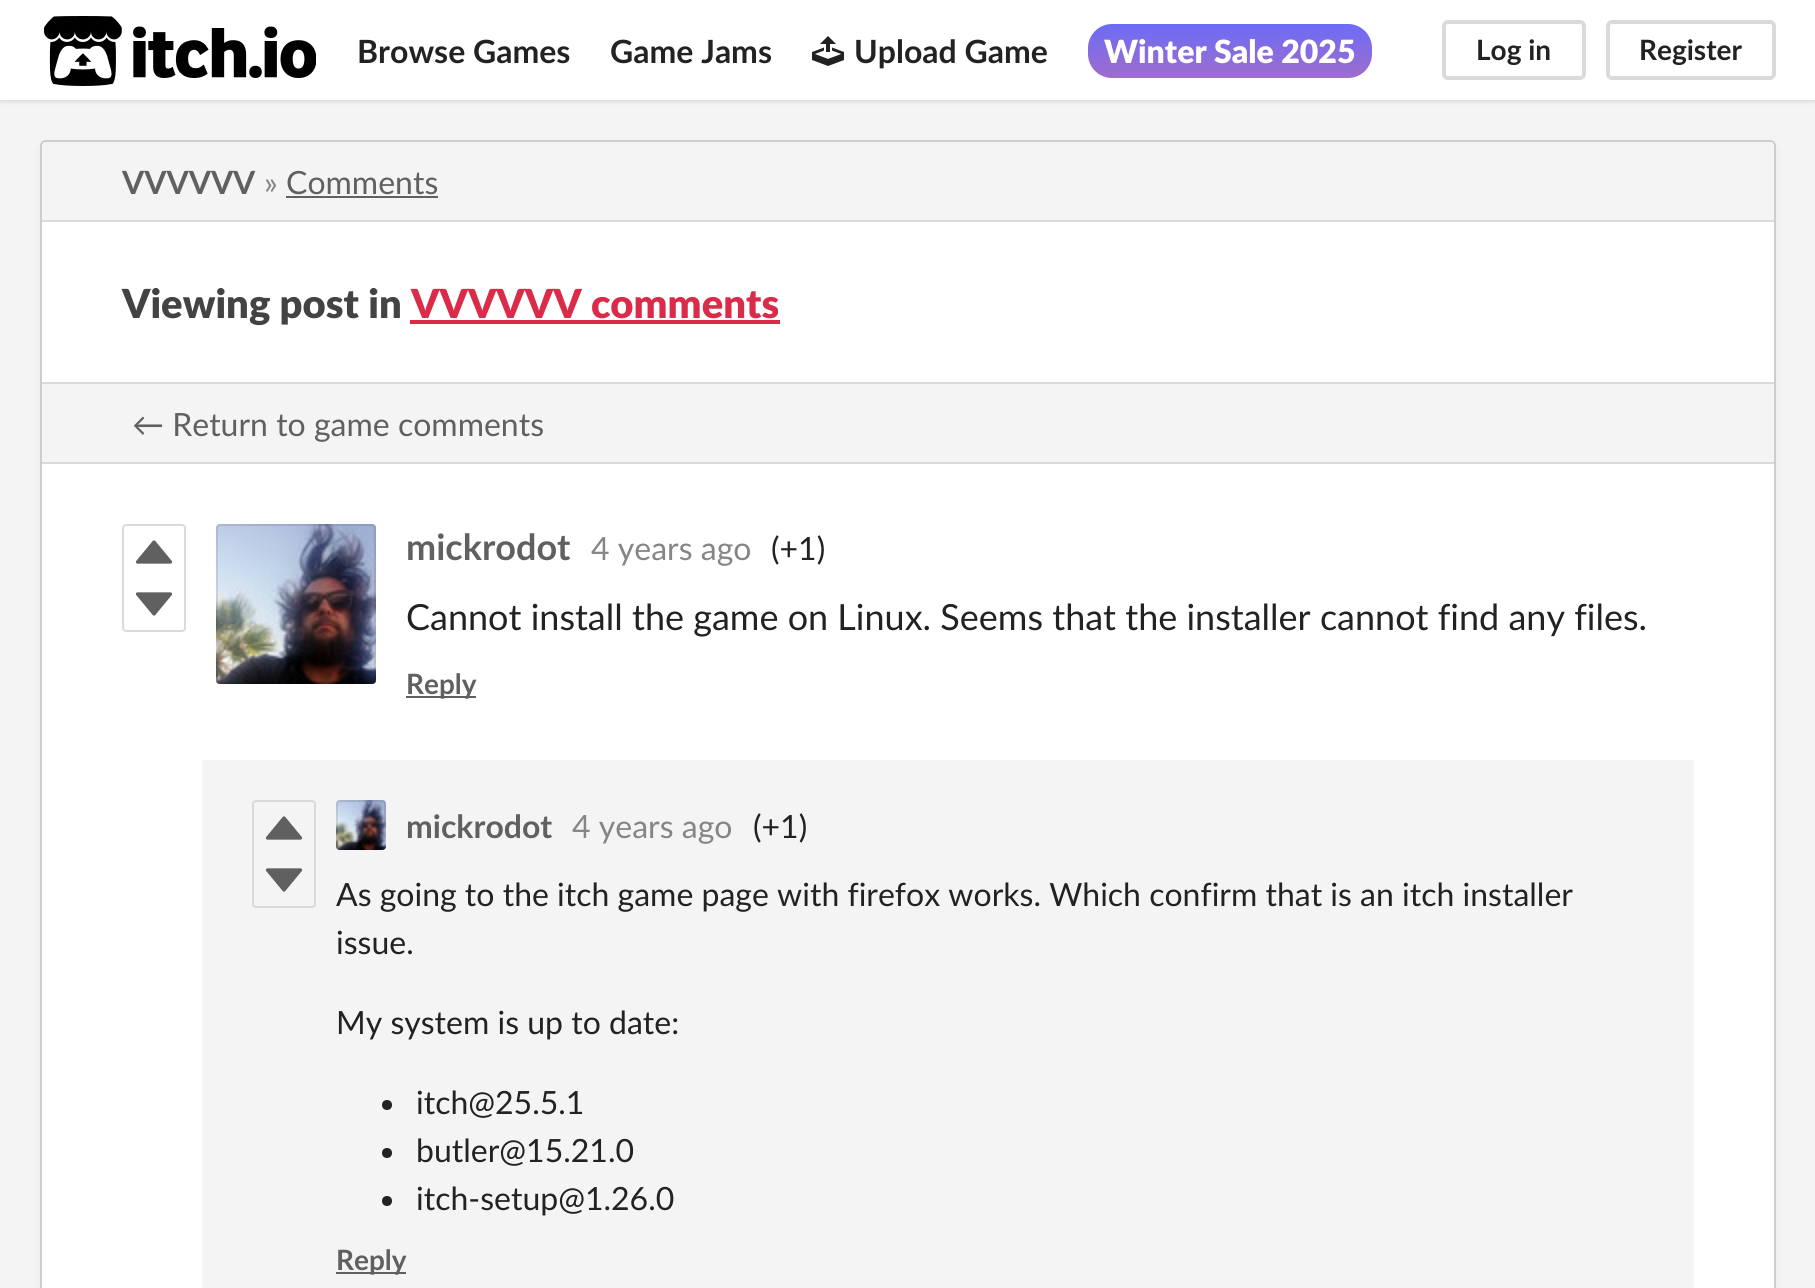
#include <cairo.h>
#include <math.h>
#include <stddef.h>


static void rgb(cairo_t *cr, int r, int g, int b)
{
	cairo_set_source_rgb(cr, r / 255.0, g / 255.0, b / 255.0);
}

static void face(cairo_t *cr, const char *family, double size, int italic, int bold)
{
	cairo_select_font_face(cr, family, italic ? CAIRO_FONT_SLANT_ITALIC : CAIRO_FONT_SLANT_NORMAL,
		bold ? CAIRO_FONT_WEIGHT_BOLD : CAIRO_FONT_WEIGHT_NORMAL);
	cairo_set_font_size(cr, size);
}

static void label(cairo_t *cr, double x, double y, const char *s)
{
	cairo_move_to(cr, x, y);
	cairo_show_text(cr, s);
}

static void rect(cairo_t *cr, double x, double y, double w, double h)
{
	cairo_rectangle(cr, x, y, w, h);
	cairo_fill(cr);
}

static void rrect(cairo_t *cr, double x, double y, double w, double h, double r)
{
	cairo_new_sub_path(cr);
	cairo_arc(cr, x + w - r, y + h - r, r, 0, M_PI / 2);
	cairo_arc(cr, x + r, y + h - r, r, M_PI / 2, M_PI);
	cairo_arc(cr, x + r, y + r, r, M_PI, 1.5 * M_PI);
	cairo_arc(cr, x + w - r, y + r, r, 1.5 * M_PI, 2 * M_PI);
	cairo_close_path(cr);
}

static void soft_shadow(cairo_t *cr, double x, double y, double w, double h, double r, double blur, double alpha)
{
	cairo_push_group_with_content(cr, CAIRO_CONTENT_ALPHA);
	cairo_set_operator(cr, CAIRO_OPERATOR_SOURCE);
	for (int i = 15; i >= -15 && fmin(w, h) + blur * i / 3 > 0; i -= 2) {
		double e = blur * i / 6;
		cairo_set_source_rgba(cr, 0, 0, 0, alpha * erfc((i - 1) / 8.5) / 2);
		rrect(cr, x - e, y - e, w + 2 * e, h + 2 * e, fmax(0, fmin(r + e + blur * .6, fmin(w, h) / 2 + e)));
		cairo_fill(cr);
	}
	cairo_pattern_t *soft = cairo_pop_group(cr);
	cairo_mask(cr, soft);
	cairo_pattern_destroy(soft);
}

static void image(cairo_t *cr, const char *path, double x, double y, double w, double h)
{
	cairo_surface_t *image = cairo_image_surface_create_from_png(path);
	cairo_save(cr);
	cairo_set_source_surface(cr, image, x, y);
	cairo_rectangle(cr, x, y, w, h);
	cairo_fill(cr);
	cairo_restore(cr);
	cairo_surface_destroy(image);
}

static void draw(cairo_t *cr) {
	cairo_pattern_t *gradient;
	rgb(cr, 244, 244, 244);
	cairo_paint(cr);
	rgb(cr, 0, 0, 0);
	soft_shadow(cr, 0, 2, 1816, 100, 0, 2, 0.1);
	rgb(cr, 255, 255, 255);
	rect(cr, 0, 0, 1815, 100);
	image(cr, "image0.png", 44, 16, 272, 70);
	face(cr, "Lato", 32, 0, 1);
	rgb(cr, 34, 34, 34);
	label(cr, 357, 63, "Browse Games");
	label(cr, 610, 63, "Game Jams");
	image(cr, "image1.png", 812, 36, 32, 30);
	label(cr, 854, 63, "Upload Game");
	gradient = cairo_pattern_create_linear(1230, 24, 1230, 78);
	cairo_pattern_add_color_stop_rgba(gradient, 0, 0.424, 0.424, 0.965, 1);
	cairo_pattern_add_color_stop_rgba(gradient, 1, 0.62, 0.424, 0.804, 1);
	cairo_set_source(cr, gradient);
	cairo_pattern_destroy(gradient);
	rrect(cr, 1088, 24, 284, 54, 24);
	cairo_fill(cr);
	face(cr, "Lato Black", 32, 0, 0);
	rgb(cr, 255, 255, 255);
	label(cr, 1104, 63, "Winter Sale 2025");
	rrect(cr, 1444, 22, 140, 56, 4);
	rgb(cr, 218, 218, 218);
	cairo_set_line_width(cr, 4);
	cairo_stroke(cr);
	face(cr, "Lato", 28, 0, 1);
	rgb(cr, 34, 34, 34);
	label(cr, 1476, 60, "Log in");
	rrect(cr, 1608, 22, 166, 56, 4);
	rgb(cr, 218, 218, 218);
	cairo_stroke(cr);
	rgb(cr, 34, 34, 34);
	label(cr, 1639, 60, "Register");
	rgb(cr, 0, 0, 0);
	soft_shadow(cr, 40, 144, 1736, 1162, 6, 4, 0.05);
	rgb(cr, 255, 255, 255);
	rrect(cr, 41, 141, 1734, 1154, 5);
	cairo_fill_preserve(cr);
	rgb(cr, 205, 205, 205);
	cairo_set_line_width(cr, 2);
	cairo_stroke(cr);
	rgb(cr, 244, 244, 244);
	cairo_new_path(cr);
	cairo_move_to(cr, 48, 142);
	cairo_line_to(cr, 1768, 142);
	cairo_curve_to(cr, 1771.5, 142, 1774, 144.5, 1774, 148);
	cairo_line_to(cr, 1774, 222);
	cairo_line_to(cr, 42, 222);
	cairo_line_to(cr, 42, 148);
	cairo_curve_to(cr, 42, 144.5, 44.5, 142, 48, 142);
	cairo_close_path(cr);
	cairo_fill(cr);
	rgb(cr, 218, 218, 218);
	rect(cr, 42, 220, 1732, 2);
	face(cr, "Lato", 32, 0, 1);
	rgb(cr, 96, 96, 96);
	label(cr, 122, 194, "VVVVVV");
	face(cr, "Lato", 32, 0, 0);
	rgb(cr, 133, 133, 133);
	label(cr, 264, 194, "»");
	rgb(cr, 96, 96, 96);
	label(cr, 286, 194, "Comments");
	rect(cr, 286, 196, 152, 2);
	rgb(cr, 218, 218, 218);
	rect(cr, 42, 382, 1732, 2);
	face(cr, "Lato Black", 40, 0, 0);
	rgb(cr, 67, 67, 67);
	label(cr, 122, 318, "Viewing post in");
	rgb(cr, 218, 44, 73);
	label(cr, 411, 318, "VVVVVV comments");
	rect(cr, 410, 320, 370, 4);
	rgb(cr, 244, 244, 244);
	rect(cr, 42, 384, 1732, 78);
	rgb(cr, 218, 218, 218);
	rect(cr, 42, 462, 1732, 2);
	face(cr, "Lato", 32, 0, 0);
	rgb(cr, 96, 96, 96);
	label(cr, 132, 436, "← Return to game comments");
	rrect(cr, 123, 525, 62, 106, 3);
	rgb(cr, 218, 218, 218);
	cairo_stroke(cr);
	rgb(cr, 96, 96, 96);
	cairo_new_path(cr);
	cairo_move_to(cr, 137.5, 562);
	cairo_line_to(cr, 154, 542);
	cairo_line_to(cr, 170.5, 562);
	cairo_close_path(cr);
	cairo_fill_preserve(cr);
	cairo_set_line_width(cr, 3.3);
	cairo_set_line_join(cr, CAIRO_LINE_JOIN_ROUND);
	cairo_stroke(cr);
	cairo_new_path(cr);
	cairo_move_to(cr, 137.5, 594);
	cairo_line_to(cr, 154, 614);
	cairo_line_to(cr, 170.5, 594);
	cairo_close_path(cr);
	cairo_fill_preserve(cr);
	cairo_stroke(cr);
	image(cr, "image2.png", 216, 524, 160, 160);
	rrect(cr, 217, 525, 158, 158, 3);
	cairo_set_source_rgba(cr, 0, 0, 0, 0.1);
	cairo_set_line_width(cr, 2);
	cairo_set_line_join(cr, CAIRO_LINE_JOIN_MITER);
	cairo_stroke(cr);
	face(cr, "Lato", 36, 0, 1);
	rgb(cr, 96, 96, 96);
	label(cr, 406, 560, "mickrodot");
	face(cr, "Lato", 32, 0, 0);
	rgb(cr, 133, 133, 133);
	label(cr, 591, 560, "4 years ago");
	rgb(cr, 34, 34, 34);
	label(cr, 771, 560, "(+1)");
	face(cr, "Lato", 36, 0, 0);
	label(cr, 406, 630, "Cannot install the game on Linux. Seems that the installer cannot find any files.");
	rgb(cr, 96, 96, 96);
	rect(cr, 406, 696, 70, 2);
	face(cr, "Lato", 28, 0, 1);
	label(cr, 406, 694, "Reply");
	rgb(cr, 244, 244, 244);
	rect(cr, 202, 760, 1492, 528);
	rrect(cr, 253, 801, 62, 106, 3);
	rgb(cr, 218, 218, 218);
	cairo_stroke(cr);
	rgb(cr, 96, 96, 96);
	cairo_new_path(cr);
	cairo_move_to(cr, 267.5, 838);
	cairo_line_to(cr, 284, 818);
	cairo_line_to(cr, 300.5, 838);
	cairo_close_path(cr);
	cairo_fill_preserve(cr);
	cairo_set_line_width(cr, 3.3);
	cairo_set_line_join(cr, CAIRO_LINE_JOIN_ROUND);
	cairo_stroke(cr);
	cairo_new_path(cr);
	cairo_move_to(cr, 267.5, 870);
	cairo_line_to(cr, 284, 890);
	cairo_line_to(cr, 300.5, 870);
	cairo_close_path(cr);
	cairo_fill_preserve(cr);
	cairo_stroke(cr);
	image(cr, "image3.png", 336, 800, 50, 50);
	rrect(cr, 337, 801, 48, 48, 3);
	cairo_set_source_rgba(cr, 0, 0, 0, 0.1);
	cairo_set_line_width(cr, 2);
	cairo_set_line_join(cr, CAIRO_LINE_JOIN_MITER);
	cairo_stroke(cr);
	face(cr, "Lato", 32, 0, 1);
	rgb(cr, 96, 96, 96);
	label(cr, 406, 838, "mickrodot");
	face(cr, "Lato", 32, 0, 0);
	rgb(cr, 133, 133, 133);
	label(cr, 572, 838, "4 years ago");
	rgb(cr, 34, 34, 34);
	label(cr, 753, 838, "(+1)");
	label(cr, 336, 906, "As going to the itch game page with firefox works. Which confirm that is an itch installer");
	label(cr, 336, 954, "issue.");
	label(cr, 336, 1034, "My system is up to date:");
	cairo_new_path(cr);
	cairo_arc(cr, 387, 1105, 5, 0, 2 * M_PI);
	cairo_fill(cr);
	label(cr, 416, 1114, "itch@25.5.1");
	cairo_new_path(cr);
	cairo_arc(cr, 387, 1153, 5, 0, 2 * M_PI);
	cairo_fill(cr);
	label(cr, 416, 1162, "butler@15.21.0");
	cairo_new_path(cr);
	cairo_arc(cr, 387, 1201, 5, 0, 2 * M_PI);
	cairo_fill(cr);
	label(cr, 416, 1210, "itch-setup@1.26.0");
	rgb(cr, 96, 96, 96);
	rect(cr, 336, 1272, 70, 2);
	face(cr, "Lato", 28, 0, 1);
	label(cr, 336, 1270, "Reply");
}

int main(void) {
	cairo_surface_t *surface = cairo_image_surface_create(CAIRO_FORMAT_RGB24, 1815, 1288);
	cairo_t *cr = cairo_create(surface);
	cairo_font_options_t *options = cairo_font_options_create();
	cairo_font_options_set_hint_metrics(options, CAIRO_HINT_METRICS_OFF);
	cairo_font_options_set_hint_style(options, CAIRO_HINT_STYLE_NONE);
	cairo_set_font_options(cr, options);
	cairo_set_miter_limit(cr, 4);
	draw(cr);
	cairo_surface_write_to_png(surface, "render.png");
	cairo_font_options_destroy(options);
	cairo_destroy(cr);
	cairo_surface_destroy(surface);
	return 0;
}
